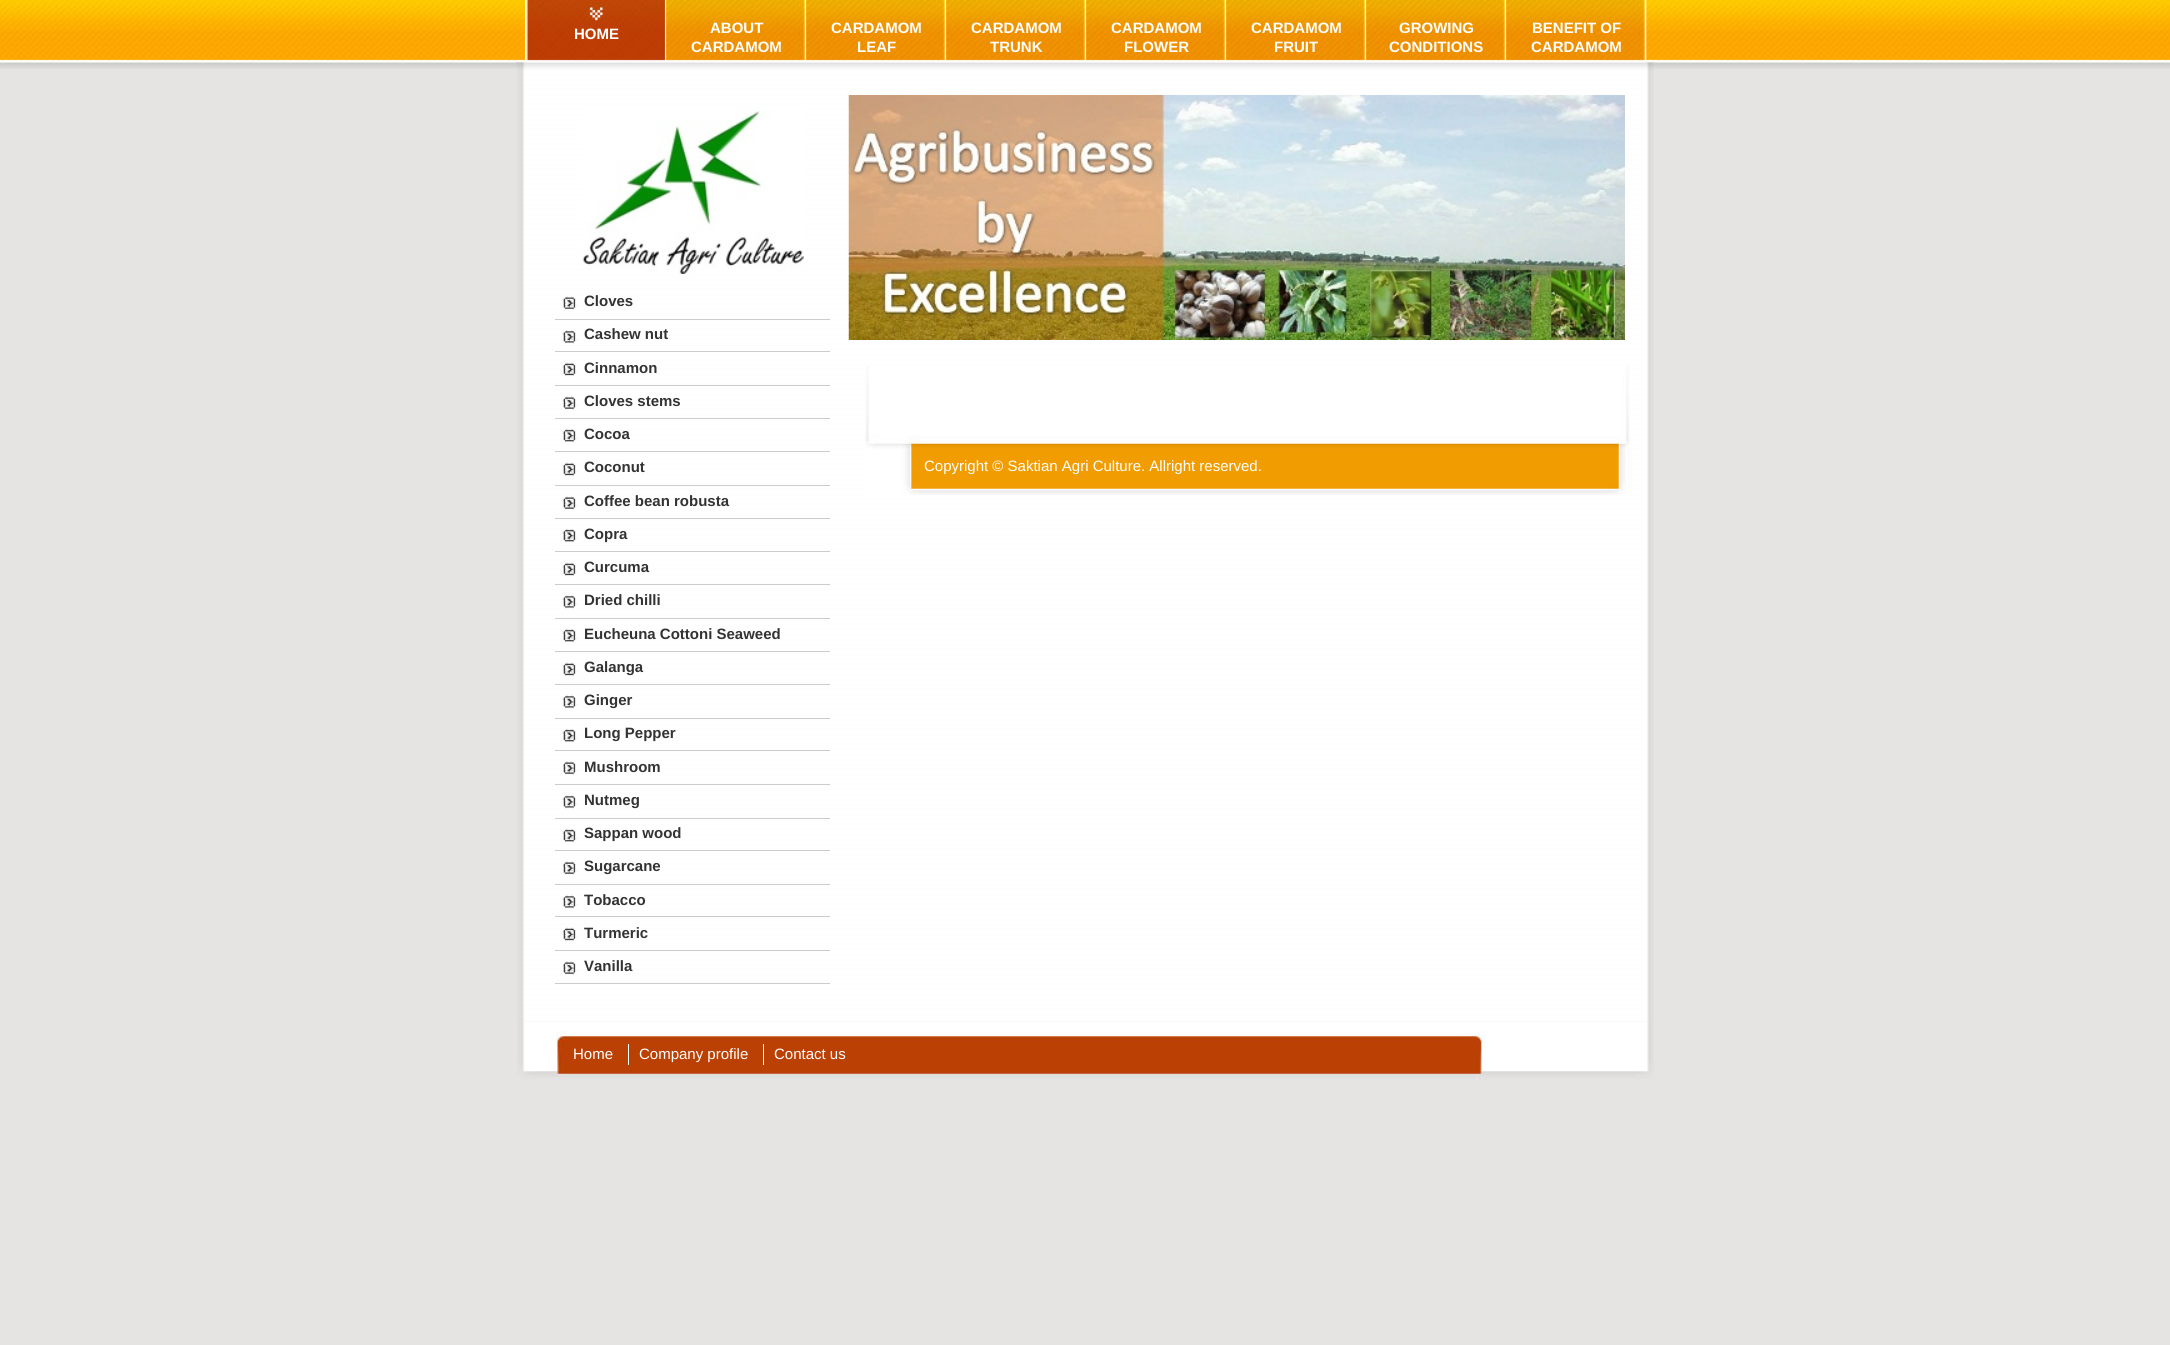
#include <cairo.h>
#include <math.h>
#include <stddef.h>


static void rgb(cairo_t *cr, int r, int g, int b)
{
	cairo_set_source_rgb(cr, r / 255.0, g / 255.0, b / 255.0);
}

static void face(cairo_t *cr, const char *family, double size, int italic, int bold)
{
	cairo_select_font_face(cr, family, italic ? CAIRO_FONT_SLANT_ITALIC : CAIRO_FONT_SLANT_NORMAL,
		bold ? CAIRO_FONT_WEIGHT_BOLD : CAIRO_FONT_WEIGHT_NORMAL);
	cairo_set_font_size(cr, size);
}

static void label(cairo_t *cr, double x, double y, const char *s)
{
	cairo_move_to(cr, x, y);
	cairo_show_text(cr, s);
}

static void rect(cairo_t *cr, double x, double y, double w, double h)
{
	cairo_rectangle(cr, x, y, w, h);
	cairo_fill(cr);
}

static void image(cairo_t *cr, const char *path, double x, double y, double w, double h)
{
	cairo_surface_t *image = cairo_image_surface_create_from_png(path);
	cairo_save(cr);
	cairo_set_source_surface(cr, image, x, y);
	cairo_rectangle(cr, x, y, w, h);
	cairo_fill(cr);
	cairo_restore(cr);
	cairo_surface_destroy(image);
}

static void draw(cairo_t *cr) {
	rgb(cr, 229, 228, 227);
	cairo_paint(cr);
	image(cr, "image0.png", 0, 0, 2170, 69);
	rgb(cr, 255, 255, 255);
	rect(cr, 525, 0, 1, 63);
	image(cr, "image9.png", 516, 62, 1138, 8);
	image(cr, "image1.png", 526, 0, 141, 63);
	face(cr, "Liberation Sans", 15, 0, 1);
	label(cr, 574, 39, "HOME");
	image(cr, "image2.png", 666, 0, 141, 63);
	label(cr, 710, 33, "ABOUT");
	label(cr, 691, 52, "CARDAMOM");
	image(cr, "image3.png", 806, 0, 141, 63);
	label(cr, 831, 33, "CARDAMOM");
	label(cr, 857, 52, "LEAF");
	image(cr, "image4.png", 946, 0, 141, 63);
	label(cr, 971, 33, "CARDAMOM");
	label(cr, 990, 52, "TRUNK");
	image(cr, "image5.png", 1086, 0, 141, 63);
	label(cr, 1111, 33, "CARDAMOM");
	label(cr, 1124, 52, "FLOWER");
	image(cr, "image6.png", 1226, 0, 141, 63);
	label(cr, 1251, 33, "CARDAMOM");
	label(cr, 1274, 52, "FRUIT");
	image(cr, "image7.png", 1366, 0, 141, 63);
	label(cr, 1399, 33, "GROWING");
	label(cr, 1389, 52, "CONDITIONS");
	image(cr, "image8.png", 1506, 0, 141, 63);
	label(cr, 1532, 33, "BENEFIT OF");
	label(cr, 1531, 52, "CARDAMOM");
	image(cr, "image10.png", 517, 70, 1137, 952);
	image(cr, "image11.png", 582, 106, 222, 168);
	image(cr, "image12.png", 562, 296, 16, 14);
	rgb(cr, 204, 204, 204);
	rect(cr, 555, 319, 275, 1);
	rgb(cr, 51, 51, 51);
	label(cr, 584, 306, "Cloves");
	image(cr, "image13.png", 562, 330, 16, 14);
	rgb(cr, 204, 204, 204);
	rect(cr, 555, 351, 275, 1);
	rgb(cr, 51, 51, 51);
	label(cr, 584, 339, "Cashew nut");
	image(cr, "image14.png", 562, 362, 16, 15);
	rgb(cr, 204, 204, 204);
	rect(cr, 555, 385, 275, 1);
	rgb(cr, 51, 51, 51);
	label(cr, 584, 373, "Cinnamon");
	image(cr, "image15.png", 562, 396, 16, 14);
	rgb(cr, 204, 204, 204);
	rect(cr, 555, 418, 275, 1);
	rgb(cr, 51, 51, 51);
	label(cr, 584, 406, "Cloves stems");
	image(cr, "image16.png", 562, 428, 16, 15);
	rgb(cr, 204, 204, 204);
	rect(cr, 555, 451, 275, 1);
	rgb(cr, 51, 51, 51);
	label(cr, 584, 439, "Cocoa");
	image(cr, "image14.png", 562, 462, 16, 15);
	rgb(cr, 204, 204, 204);
	rect(cr, 555, 485, 275, 1);
	rgb(cr, 51, 51, 51);
	label(cr, 584, 472, "Coconut");
	image(cr, "image15.png", 562, 496, 16, 14);
	rgb(cr, 204, 204, 204);
	rect(cr, 555, 518, 275, 1);
	rgb(cr, 51, 51, 51);
	label(cr, 584, 506, "Coffee bean robusta");
	image(cr, "image16.png", 562, 528, 16, 15);
	rgb(cr, 204, 204, 204);
	rect(cr, 555, 551, 275, 1);
	rgb(cr, 51, 51, 51);
	label(cr, 584, 539, "Copra");
	image(cr, "image14.png", 562, 562, 16, 15);
	rgb(cr, 204, 204, 204);
	rect(cr, 555, 584, 275, 1);
	rgb(cr, 51, 51, 51);
	label(cr, 584, 572, "Curcuma");
	image(cr, "image13.png", 562, 595, 16, 14);
	rgb(cr, 204, 204, 204);
	rect(cr, 555, 618, 275, 1);
	rgb(cr, 51, 51, 51);
	label(cr, 584, 605, "Dried chilli");
	image(cr, "image16.png", 562, 628, 16, 15);
	rgb(cr, 204, 204, 204);
	rect(cr, 555, 651, 275, 1);
	rgb(cr, 51, 51, 51);
	label(cr, 584, 639, "Eucheuna Cottoni Seaweed");
	image(cr, "image14.png", 562, 662, 16, 15);
	rgb(cr, 204, 204, 204);
	rect(cr, 555, 684, 275, 1);
	rgb(cr, 51, 51, 51);
	label(cr, 584, 672, "Galanga");
	image(cr, "image13.png", 562, 695, 16, 14);
	rgb(cr, 204, 204, 204);
	rect(cr, 555, 718, 275, 1);
	rgb(cr, 51, 51, 51);
	label(cr, 584, 705, "Ginger");
	image(cr, "image16.png", 562, 728, 16, 15);
	rgb(cr, 204, 204, 204);
	rect(cr, 555, 750, 275, 1);
	rgb(cr, 51, 51, 51);
	label(cr, 584, 738, "Long Pepper");
	image(cr, "image15.png", 562, 761, 16, 14);
	rgb(cr, 204, 204, 204);
	rect(cr, 555, 784, 275, 1);
	rgb(cr, 51, 51, 51);
	label(cr, 584, 772, "Mushroom");
	image(cr, "image13.png", 562, 795, 16, 14);
	rgb(cr, 204, 204, 204);
	rect(cr, 555, 818, 275, 1);
	rgb(cr, 51, 51, 51);
	label(cr, 584, 805, "Nutmeg");
	image(cr, "image16.png", 562, 828, 16, 15);
	rgb(cr, 204, 204, 204);
	rect(cr, 555, 850, 275, 1);
	rgb(cr, 51, 51, 51);
	label(cr, 584, 838, "Sappan wood");
	image(cr, "image15.png", 562, 861, 16, 14);
	rgb(cr, 204, 204, 204);
	rect(cr, 555, 884, 275, 1);
	rgb(cr, 51, 51, 51);
	label(cr, 584, 871, "Sugarcane");
	image(cr, "image13.png", 562, 895, 16, 14);
	rgb(cr, 204, 204, 204);
	rect(cr, 555, 916, 275, 1);
	rgb(cr, 51, 51, 51);
	label(cr, 584, 905, "Tobacco");
	image(cr, "image14.png", 562, 927, 16, 15);
	rgb(cr, 204, 204, 204);
	rect(cr, 555, 950, 275, 1);
	rgb(cr, 51, 51, 51);
	label(cr, 584, 938, "Turmeric");
	image(cr, "image15.png", 562, 961, 16, 14);
	rgb(cr, 204, 204, 204);
	rect(cr, 555, 983, 275, 1);
	rgb(cr, 51, 51, 51);
	label(cr, 584, 971, "Vanilla");
	image(cr, "image17.png", 848, 95, 777, 245);
	image(cr, "image18.png", 865, 366, 765, 129);
	face(cr, "Liberation Sans", 15, 0, 0);
	rgb(cr, 255, 255, 255);
	label(cr, 924, 471, "Copyright © Saktian Agri Culture. Allright reserved.");
	image(cr, "image19.png", 517, 1021, 1137, 59);
	label(cr, 573, 1059, "Home");
	rect(cr, 628, 1044, 1, 21);
	label(cr, 639, 1059, "Company profile");
	rect(cr, 763, 1044, 1, 21);
	label(cr, 774, 1059, "Contact us");
}

int main(void) {
	cairo_surface_t *surface = cairo_image_surface_create(CAIRO_FORMAT_RGB24, 2170, 1345);
	cairo_t *cr = cairo_create(surface);
	cairo_font_options_t *options = cairo_font_options_create();
	cairo_font_options_set_hint_metrics(options, CAIRO_HINT_METRICS_OFF);
	cairo_font_options_set_hint_style(options, CAIRO_HINT_STYLE_NONE);
	cairo_set_font_options(cr, options);
	cairo_set_miter_limit(cr, 4);
	draw(cr);
	cairo_surface_write_to_png(surface, "render.png");
	cairo_font_options_destroy(options);
	cairo_destroy(cr);
	cairo_surface_destroy(surface);
	return 0;
}
